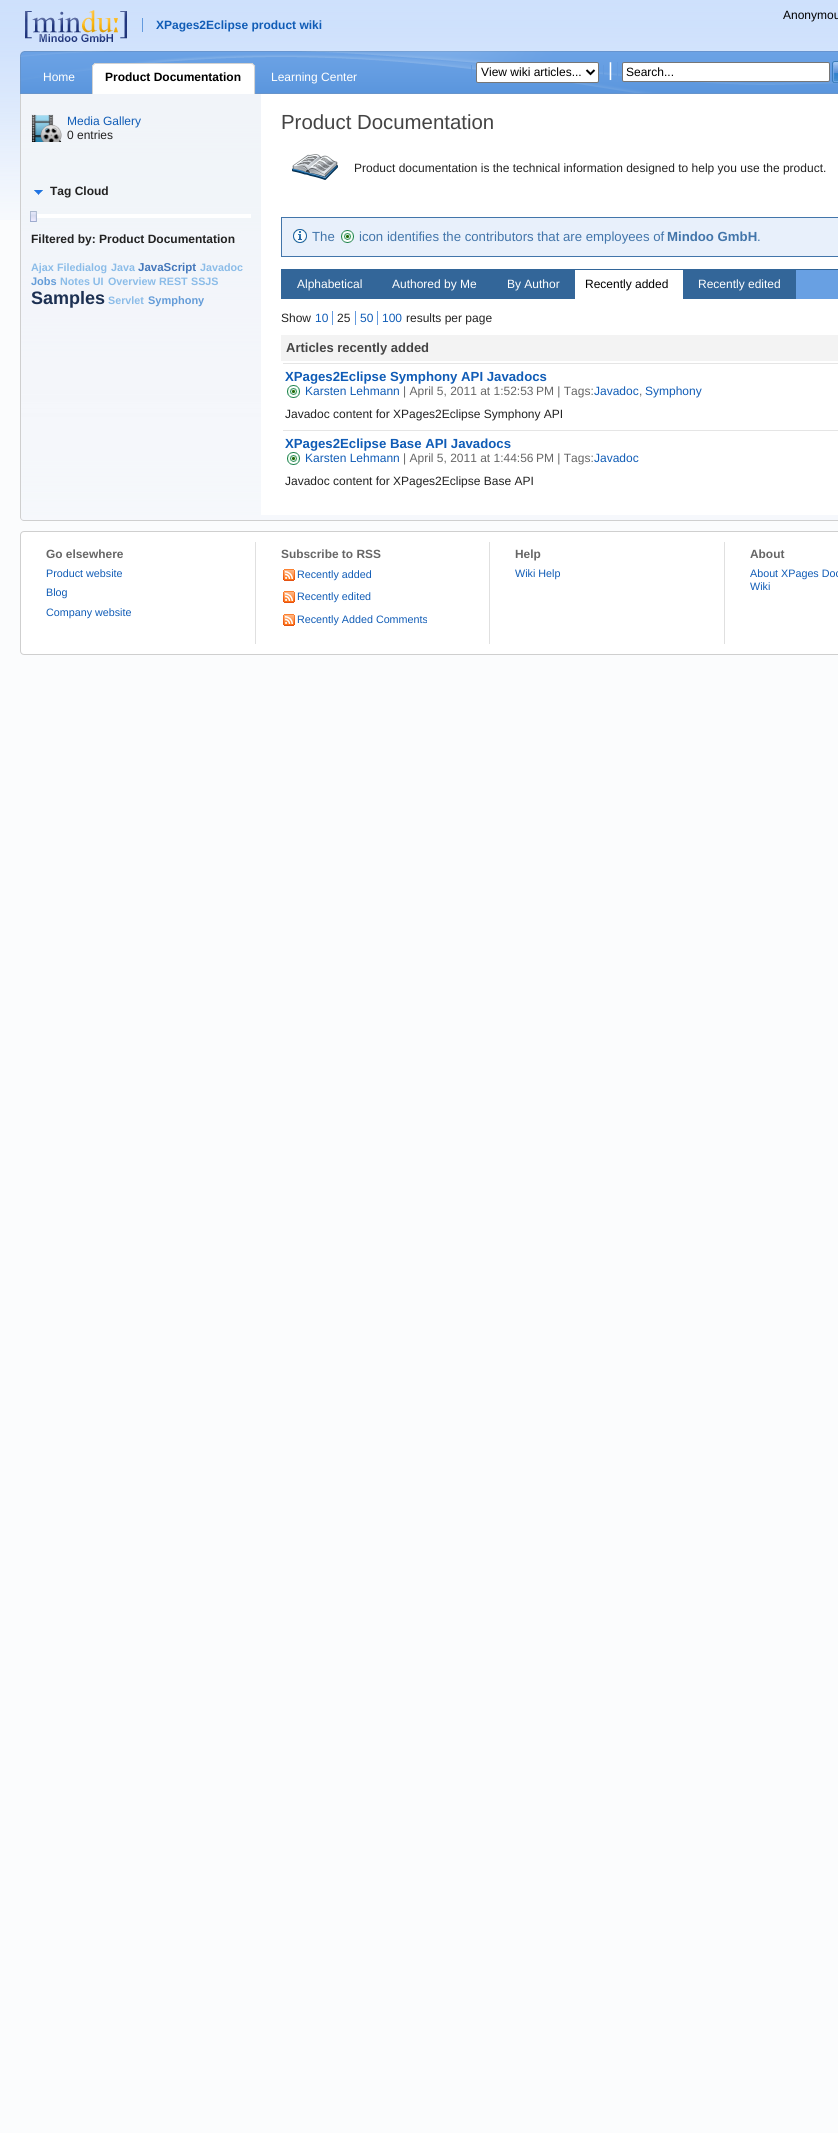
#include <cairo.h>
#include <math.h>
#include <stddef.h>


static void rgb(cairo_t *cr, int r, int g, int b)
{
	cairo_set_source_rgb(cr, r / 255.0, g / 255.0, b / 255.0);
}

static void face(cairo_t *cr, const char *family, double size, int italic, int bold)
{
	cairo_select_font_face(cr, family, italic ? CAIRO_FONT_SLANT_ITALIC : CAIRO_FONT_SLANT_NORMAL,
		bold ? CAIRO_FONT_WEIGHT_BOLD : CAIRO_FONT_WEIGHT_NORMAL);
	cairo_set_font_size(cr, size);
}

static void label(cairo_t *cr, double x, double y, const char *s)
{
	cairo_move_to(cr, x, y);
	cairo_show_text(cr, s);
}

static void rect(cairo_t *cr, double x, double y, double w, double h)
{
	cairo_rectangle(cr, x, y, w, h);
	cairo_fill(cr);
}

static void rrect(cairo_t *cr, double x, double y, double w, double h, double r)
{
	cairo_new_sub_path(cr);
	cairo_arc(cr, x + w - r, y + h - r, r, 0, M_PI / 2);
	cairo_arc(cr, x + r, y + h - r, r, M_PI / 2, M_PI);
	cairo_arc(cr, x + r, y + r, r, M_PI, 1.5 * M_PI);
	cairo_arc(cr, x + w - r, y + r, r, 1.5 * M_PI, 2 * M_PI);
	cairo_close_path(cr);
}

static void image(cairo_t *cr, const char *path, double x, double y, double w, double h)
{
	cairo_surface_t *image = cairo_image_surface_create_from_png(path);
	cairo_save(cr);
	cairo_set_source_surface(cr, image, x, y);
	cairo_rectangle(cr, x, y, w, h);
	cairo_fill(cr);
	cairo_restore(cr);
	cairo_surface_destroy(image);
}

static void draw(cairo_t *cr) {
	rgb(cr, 251, 252, 253);
	cairo_paint(cr);
	image(cr, "image0.png", 0, 0, 838, 220);
	face(cr, "Liberation Sans", 12, 0, 0);
	rgb(cr, 0, 0, 0);
	label(cr, 783, 19, "Anonymou");
	image(cr, "image1.png", 25, 10, 102, 32);
	face(cr, "Liberation Sans", 12, 0, 1);
	rgb(cr, 16, 92, 182);
	label(cr, 156, 29, "XPages2Eclipse product wiki");
	rgb(cr, 99, 154, 222);
	rect(cr, 142, 18, 1, 14);
	rgb(cr, 103, 148, 203);
	rect(cr, 20, 93, 818, 1);
	image(cr, "image2.png", 20, 51, 818, 42);
	face(cr, "Liberation Sans", 12, 0, 0);
	rgb(cr, 255, 255, 255);
	label(cr, 43, 81, "Home");
	image(cr, "image3.png", 92, 63, 3, 31);
	image(cr, "image4.png", 95, 63, 161, 31);
	face(cr, "Liberation Sans", 12, 0, 1);
	rgb(cr, 0, 0, 0);
	label(cr, 105, 81, "Product Documentation");
	face(cr, "Liberation Sans", 12, 0, 0);
	rgb(cr, 255, 255, 255);
	label(cr, 271, 81, "Learning Center");
	rgb(cr, 99, 154, 222);
	rect(cr, 471, 65, 1, 14);
	rgb(cr, 255, 255, 255);
	rrect(cr, 476.5, 62.5, 122, 20, 1.5);
	cairo_fill_preserve(cr);
	rgb(cr, 118, 118, 118);
	cairo_set_line_width(cr, 1);
	cairo_stroke(cr);
	cairo_new_path(cr);
	cairo_move_to(cr, 586.5, 70);
	cairo_line_to(cr, 590.5, 74);
	cairo_line_to(cr, 594.5, 70);
	rgb(cr, 0, 0, 0);
	cairo_set_line_width(cr, 2);
	cairo_stroke(cr);
	label(cr, 481, 76, "View wiki articles...");
	face(cr, "Liberation Sans", 19, 0, 0);
	rgb(cr, 255, 255, 255);
	label(cr, 608, 76, "|");
	rgb(cr, 99, 154, 222);
	rect(cr, 603, 65, 1, 14);
	rect(cr, 617, 62, 1, 20);
	rgb(cr, 255, 255, 255);
	rrect(cr, 622.5, 62.5, 207, 19, 1.5);
	cairo_fill_preserve(cr);
	rgb(cr, 118, 118, 118);
	cairo_set_line_width(cr, 1);
	cairo_stroke(cr);
	face(cr, "Liberation Sans", 12, 0, 0);
	rgb(cr, 0, 0, 0);
	label(cr, 626, 76, "Search...");
	image(cr, "image5.png", 832, 61, 6, 22);
	image(cr, "image6.png", 20, 94, 818, 427);
	rgb(cr, 207, 207, 207);
	cairo_set_fill_rule(cr, CAIRO_FILL_RULE_EVEN_ODD);
	cairo_new_path(cr);
	cairo_move_to(cr, 20, 94);
	cairo_line_to(cr, 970, 94);
	cairo_line_to(cr, 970, 517);
	cairo_curve_to(cr, 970, 519, 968, 521, 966, 521);
	cairo_line_to(cr, 24, 521);
	cairo_curve_to(cr, 22, 521, 20, 519, 20, 517);
	cairo_close_path(cr);
	cairo_move_to(cr, 21, 94);
	cairo_line_to(cr, 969, 94);
	cairo_line_to(cr, 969, 517);
	cairo_curve_to(cr, 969, 519, 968, 520, 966, 520);
	cairo_line_to(cr, 24, 520);
	cairo_curve_to(cr, 22, 520, 21, 519, 21, 517);
	cairo_close_path(cr);
	cairo_fill(cr);
	image(cr, "image7.png", 31, 114, 31, 28);
	rgb(cr, 16, 92, 182);
	label(cr, 67, 125, "Media Gallery");
	rgb(cr, 34, 34, 34);
	label(cr, 67, 139, "0 entries");
	image(cr, "image8.png", 34, 190, 9, 5);
	face(cr, "Liberation Sans", 12, 0, 1);
	label(cr, 50, 195, "Tag Cloud");
	rgb(cr, 255, 255, 255);
	rect(cr, 33, 214, 218, 4);
	image(cr, "image9.png", 30, 211, 7, 11);
	rgb(cr, 34, 34, 34);
	label(cr, 31, 243, "Filtered by: Product Documentation");
	face(cr, "Liberation Sans", 10.75, 0, 1);
	rgb(cr, 139, 188, 232);
	label(cr, 31, 271, "Ajax");
	label(cr, 57, 271, "Filedialog");
	label(cr, 111, 271, "Java");
	face(cr, "Liberation Sans", 11.5, 0, 1);
	rgb(cr, 68, 119, 187);
	label(cr, 138, 271, "JavaScript");
	face(cr, "Liberation Sans", 10.75, 0, 1);
	rgb(cr, 139, 188, 232);
	label(cr, 200, 271, "Javadoc");
	face(cr, "Liberation Sans", 11, 0, 1);
	rgb(cr, 100, 156, 216);
	label(cr, 31, 285, "Jobs");
	face(cr, "Liberation Sans", 10.75, 0, 1);
	rgb(cr, 139, 188, 232);
	label(cr, 60, 285, "Notes UI");
	label(cr, 108, 285, "Overview");
	label(cr, 159, 285, "REST");
	label(cr, 191, 285, "SSJS");
	face(cr, "Liberation Sans", 18, 0, 1);
	rgb(cr, 28, 48, 82);
	label(cr, 31, 304, "Samples");
	face(cr, "Liberation Sans", 10.75, 0, 1);
	rgb(cr, 139, 188, 232);
	label(cr, 108, 304, "Servlet");
	face(cr, "Liberation Sans", 11, 0, 1);
	rgb(cr, 100, 156, 216);
	label(cr, 148, 304, "Symphony");
	rgb(cr, 255, 255, 255);
	rect(cr, 261, 94, 577, 421);
	face(cr, "Liberation Sans", 20.4, 0, 0);
	rgb(cr, 68, 68, 68);
	label(cr, 281, 129, "Product Documentation");
	image(cr, "image10.png", 292, 154, 46, 26);
	face(cr, "Liberation Sans", 12, 0, 0);
	rgb(cr, 34, 34, 34);
	label(cr, 354, 172, "Product documentation is the technical information designed to help you use the product.");
	rgb(cr, 232, 240, 251);
	cairo_rectangle(cr, 281.5, 217.5, 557, 39);
	cairo_fill_preserve(cr);
	rgb(cr, 66, 117, 170);
	cairo_stroke(cr);
	image(cr, "image11.png", 293, 229, 14, 14);
	face(cr, "Liberation Sans", 13.2, 0, 0);
	label(cr, 312, 241, "The");
	image(cr, "image12.png", 341, 230, 13, 13);
	label(cr, 359, 241, "icon identifies the contributors that are employees of");
	face(cr, "Liberation Sans", 13.2, 0, 1);
	label(cr, 667, 241, "Mindoo GmbH");
	face(cr, "Liberation Sans", 13.2, 0, 0);
	label(cr, 757, 241, ".");
	rgb(cr, 104, 160, 227);
	rect(cr, 796, 270, 42, 29);
	rgb(cr, 51, 102, 153);
	rect(cr, 281, 269, 557, 1);
	rect(cr, 281, 269, 1, 30);
	rect(cr, 282, 270, 293, 29);
	face(cr, "Liberation Sans", 12, 0, 0);
	rgb(cr, 255, 255, 255);
	label(cr, 297, 288, "Alphabetical");
	label(cr, 392, 288, "Authored by Me");
	label(cr, 507, 288, "By Author");
	rgb(cr, 0, 0, 0);
	label(cr, 585, 288, "Recently added");
	rgb(cr, 51, 102, 153);
	rect(cr, 683, 270, 113, 29);
	rgb(cr, 255, 255, 255);
	label(cr, 698, 288, "Recently edited");
	rgb(cr, 34, 34, 34);
	label(cr, 281, 322, "Show");
	rgb(cr, 16, 92, 182);
	label(cr, 315, 322, "10");
	rgb(cr, 99, 154, 222);
	rect(cr, 332, 311, 1, 14);
	rgb(cr, 34, 34, 34);
	label(cr, 337, 322, "25");
	rgb(cr, 99, 154, 222);
	rect(cr, 355, 311, 1, 14);
	rgb(cr, 16, 92, 182);
	label(cr, 360, 322, "50");
	rgb(cr, 99, 154, 222);
	rect(cr, 377, 311, 1, 14);
	rgb(cr, 16, 92, 182);
	label(cr, 382, 322, "100");
	rgb(cr, 34, 34, 34);
	label(cr, 406, 322, "results per page");
	rgb(cr, 243, 243, 243);
	rect(cr, 281, 335, 557, 26);
	face(cr, "Liberation Sans", 13, 0, 1);
	rgb(cr, 68, 68, 68);
	label(cr, 286, 352, "Articles recently added");
	rgb(cr, 229, 229, 229);
	rect(cr, 283, 363, 555, 1);
	face(cr, "Liberation Sans", 13.2, 0, 1);
	rgb(cr, 16, 92, 182);
	label(cr, 285, 381, "XPages2Eclipse Symphony API Javadocs");
	image(cr, "image13.png", 287, 385, 13, 13);
	face(cr, "Liberation Sans", 12, 0, 0);
	label(cr, 305, 395, "Karsten Lehmann");
	rgb(cr, 102, 102, 102);
	label(cr, 403, 395, "| April 5, 2011 at 1:52:53 PM | Tags:");
	rgb(cr, 16, 92, 182);
	label(cr, 594, 395, "Javadoc");
	rgb(cr, 102, 102, 102);
	label(cr, 639, 395, ",");
	rgb(cr, 16, 92, 182);
	label(cr, 645, 395, "Symphony");
	rgb(cr, 34, 34, 34);
	label(cr, 285, 418, "Javadoc content for XPages2Eclipse Symphony API");
	rgb(cr, 229, 229, 229);
	rect(cr, 283, 430, 555, 1);
	face(cr, "Liberation Sans", 13.2, 0, 1);
	rgb(cr, 16, 92, 182);
	label(cr, 285, 448, "XPages2Eclipse Base API Javadocs");
	image(cr, "image13.png", 287, 452, 13, 13);
	face(cr, "Liberation Sans", 12, 0, 0);
	label(cr, 305, 462, "Karsten Lehmann");
	rgb(cr, 102, 102, 102);
	label(cr, 403, 462, "| April 5, 2011 at 1:44:56 PM | Tags:");
	rgb(cr, 16, 92, 182);
	label(cr, 594, 462, "Javadoc");
	rgb(cr, 34, 34, 34);
	label(cr, 285, 485, "Javadoc content for XPages2Eclipse Base API");
	rgb(cr, 255, 255, 255);
	rrect(cr, 20.5, 531.5, 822, 123, 3.5);
	cairo_fill_preserve(cr);
	rgb(cr, 207, 207, 207);
	cairo_stroke(cr);
	rgb(cr, 224, 224, 224);
	rect(cr, 255, 542, 1, 102);
	face(cr, "Liberation Sans", 11.9, 0, 1);
	rgb(cr, 102, 102, 102);
	label(cr, 46, 558, "Go elsewhere");
	rgb(cr, 224, 224, 224);
	rect(cr, 489, 542, 1, 102);
	rgb(cr, 102, 102, 102);
	label(cr, 281, 558, "Subscribe to RSS");
	rgb(cr, 224, 224, 224);
	rect(cr, 724, 542, 1, 102);
	rgb(cr, 102, 102, 102);
	label(cr, 515, 558, "Help");
	label(cr, 750, 558, "About");
	face(cr, "Liberation Sans", 10.75, 0, 0);
	rgb(cr, 16, 92, 182);
	label(cr, 46, 577, "Product website");
	label(cr, 46, 596, "Blog");
	label(cr, 46, 616, "Company website");
	image(cr, "image14.png", 283, 569, 12, 12);
	label(cr, 297, 578, "Recently added");
	image(cr, "image14.png", 283, 591, 12, 12);
	label(cr, 297, 600, "Recently edited");
	image(cr, "image14.png", 283, 614, 12, 12);
	label(cr, 297, 623, "Recently Added Comments");
	label(cr, 515, 577, "Wiki Help");
	label(cr, 750, 577, "About XPages Doc");
	label(cr, 750, 590, "Wiki");
}

int main(void) {
	cairo_surface_t *surface = cairo_image_surface_create(CAIRO_FORMAT_RGB24, 838, 2133);
	cairo_t *cr = cairo_create(surface);
	cairo_font_options_t *options = cairo_font_options_create();
	cairo_font_options_set_hint_metrics(options, CAIRO_HINT_METRICS_OFF);
	cairo_font_options_set_hint_style(options, CAIRO_HINT_STYLE_NONE);
	cairo_set_font_options(cr, options);
	cairo_set_miter_limit(cr, 4);
	draw(cr);
	cairo_surface_write_to_png(surface, "render.png");
	cairo_font_options_destroy(options);
	cairo_destroy(cr);
	cairo_surface_destroy(surface);
	return 0;
}
